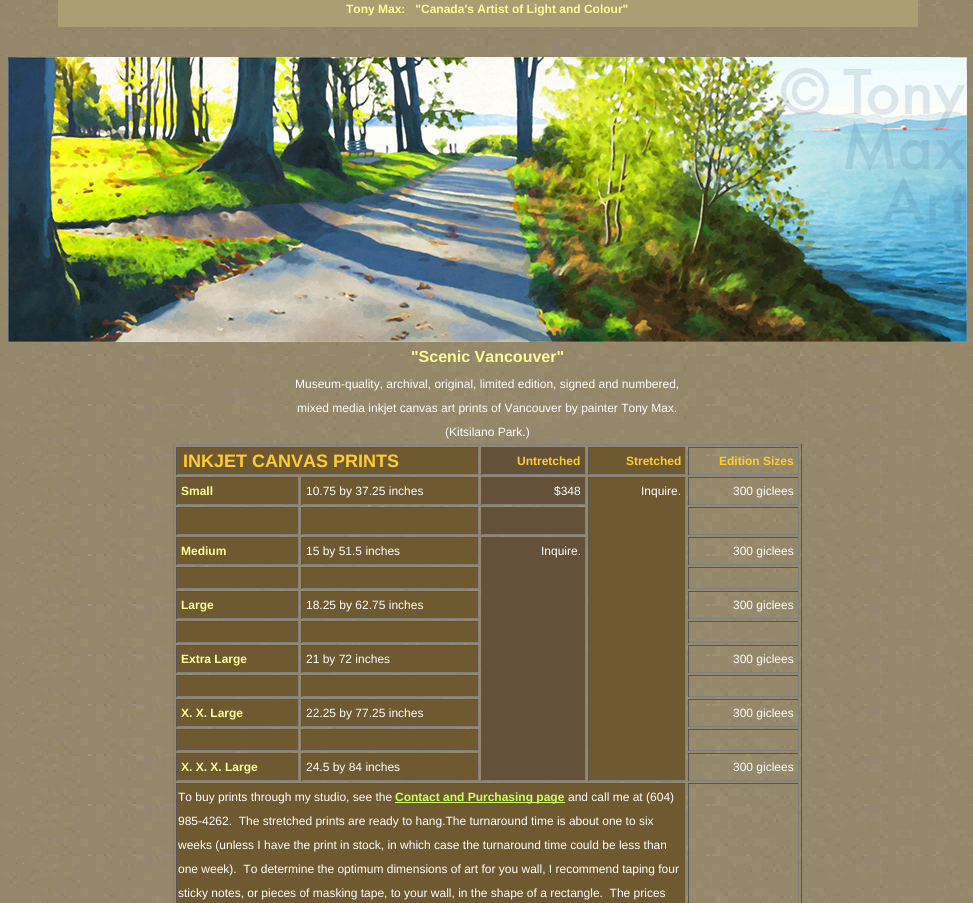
#include <cairo.h>
#include <math.h>
#include <stddef.h>


static void rgb(cairo_t *cr, int r, int g, int b)
{
	cairo_set_source_rgb(cr, r / 255.0, g / 255.0, b / 255.0);
}

static void face(cairo_t *cr, const char *family, double size, int italic, int bold)
{
	cairo_select_font_face(cr, family, italic ? CAIRO_FONT_SLANT_ITALIC : CAIRO_FONT_SLANT_NORMAL,
		bold ? CAIRO_FONT_WEIGHT_BOLD : CAIRO_FONT_WEIGHT_NORMAL);
	cairo_set_font_size(cr, size);
}

static void label(cairo_t *cr, double x, double y, const char *s)
{
	cairo_move_to(cr, x, y);
	cairo_show_text(cr, s);
}

static void rect(cairo_t *cr, double x, double y, double w, double h)
{
	cairo_rectangle(cr, x, y, w, h);
	cairo_fill(cr);
}

static void image(cairo_t *cr, const char *path, double x, double y, double w, double h)
{
	cairo_surface_t *image = cairo_image_surface_create_from_png(path);
	cairo_save(cr);
	cairo_set_source_surface(cr, image, x, y);
	cairo_rectangle(cr, x, y, w, h);
	cairo_fill(cr);
	cairo_restore(cr);
	cairo_surface_destroy(image);
}

static void draw(cairo_t *cr) {
	rgb(cr, 255, 255, 255);
	cairo_paint(cr);
	image(cr, "image0.png", 0, 0, 973, 903);
	rgb(cr, 172, 158, 115);
	rect(cr, 58, 0, 860, 27);
	face(cr, "Liberation Sans", 12, 0, 1);
	rgb(cr, 255, 255, 153);
	label(cr, 346, 13, "Tony Max:   \"Canada's Artist of Light and Colour\"");
	image(cr, "image1.png", 8, 57, 959, 285);
	face(cr, "Liberation Sans", 16, 0, 1);
	label(cr, 411, 362, "\"Scenic Vancouver\"");
	face(cr, "Liberation Sans", 12, 0, 0);
	rgb(cr, 255, 255, 255);
	label(cr, 295, 388, "Museum-quality, archival, original, limited edition, signed and numbered,");
	label(cr, 297, 412, "mixed media inkjet canvas art prints of Vancouver by painter Tony Max.");
	label(cr, 445, 436, "(Kitsilano Park.)");
	rgb(cr, 128, 128, 128);
	rect(cr, 173, 444, 629, 1);
	rgb(cr, 85, 85, 85);
	rect(cr, 801, 444, 1, 459);
	rgb(cr, 128, 128, 128);
	rect(cr, 173, 444, 1, 459);
	rgb(cr, 111, 89, 49);
	rect(cr, 177, 448, 301, 26);
	rgb(cr, 85, 85, 85);
	rect(cr, 176, 447, 303, 1);
	rgb(cr, 128, 128, 128);
	rect(cr, 478, 447, 1, 28);
	rect(cr, 176, 474, 303, 1);
	rgb(cr, 85, 85, 85);
	rect(cr, 176, 447, 1, 28);
	face(cr, "Liberation Sans", 18, 0, 1);
	rgb(cr, 255, 204, 51);
	label(cr, 183, 467, "INKJET CANVAS PRINTS");
	rgb(cr, 100, 81, 58);
	rect(cr, 482, 448, 103, 26);
	rgb(cr, 85, 85, 85);
	rect(cr, 481, 447, 105, 1);
	rgb(cr, 128, 128, 128);
	rect(cr, 585, 447, 1, 28);
	rect(cr, 481, 474, 105, 1);
	rgb(cr, 85, 85, 85);
	rect(cr, 481, 447, 1, 28);
	face(cr, "Liberation Sans", 12, 0, 1);
	rgb(cr, 255, 204, 51);
	label(cr, 517, 465, "Untretched");
	rgb(cr, 111, 89, 49);
	rect(cr, 589, 448, 96, 26);
	rgb(cr, 85, 85, 85);
	rect(cr, 588, 447, 98, 1);
	rgb(cr, 128, 128, 128);
	rect(cr, 685, 447, 1, 28);
	rect(cr, 588, 474, 98, 1);
	rgb(cr, 85, 85, 85);
	rect(cr, 588, 447, 1, 28);
	rgb(cr, 255, 204, 51);
	label(cr, 626, 465, "Stretched");
	rgb(cr, 85, 85, 85);
	rect(cr, 688, 447, 111, 1);
	rgb(cr, 128, 128, 128);
	rect(cr, 798, 447, 1, 28);
	rect(cr, 688, 474, 111, 1);
	rgb(cr, 85, 85, 85);
	rect(cr, 688, 447, 1, 28);
	rgb(cr, 255, 204, 51);
	label(cr, 719, 465, "Edition Sizes");
	rgb(cr, 111, 89, 49);
	rect(cr, 177, 478, 121, 26);
	rgb(cr, 85, 85, 85);
	rect(cr, 176, 477, 123, 1);
	rgb(cr, 128, 128, 128);
	rect(cr, 298, 477, 1, 28);
	rect(cr, 176, 504, 123, 1);
	rgb(cr, 85, 85, 85);
	rect(cr, 176, 477, 1, 28);
	rgb(cr, 255, 255, 153);
	label(cr, 181, 495, "Small");
	rgb(cr, 111, 89, 49);
	rect(cr, 302, 478, 176, 26);
	rgb(cr, 85, 85, 85);
	rect(cr, 301, 477, 178, 1);
	rgb(cr, 128, 128, 128);
	rect(cr, 478, 477, 1, 28);
	rect(cr, 301, 504, 178, 1);
	rgb(cr, 85, 85, 85);
	rect(cr, 301, 477, 1, 28);
	face(cr, "Liberation Sans", 12, 0, 0);
	rgb(cr, 255, 255, 255);
	label(cr, 306, 495, "10.75 by 37.25 inches");
	rgb(cr, 100, 81, 58);
	rect(cr, 482, 478, 103, 26);
	rgb(cr, 85, 85, 85);
	rect(cr, 481, 477, 105, 1);
	rgb(cr, 128, 128, 128);
	rect(cr, 585, 477, 1, 28);
	rect(cr, 481, 504, 105, 1);
	rgb(cr, 85, 85, 85);
	rect(cr, 481, 477, 1, 28);
	rgb(cr, 255, 255, 255);
	label(cr, 554, 495, "$348");
	rgb(cr, 111, 89, 49);
	rect(cr, 589, 478, 96, 302);
	rgb(cr, 85, 85, 85);
	rect(cr, 588, 477, 98, 1);
	rgb(cr, 128, 128, 128);
	rect(cr, 685, 477, 1, 304);
	rect(cr, 588, 780, 98, 1);
	rgb(cr, 85, 85, 85);
	rect(cr, 588, 477, 1, 304);
	rgb(cr, 255, 255, 255);
	label(cr, 641, 495, "Inquire.");
	rgb(cr, 85, 85, 85);
	rect(cr, 688, 477, 111, 1);
	rgb(cr, 128, 128, 128);
	rect(cr, 798, 477, 1, 28);
	rect(cr, 688, 504, 111, 1);
	rgb(cr, 85, 85, 85);
	rect(cr, 688, 477, 1, 28);
	rgb(cr, 255, 255, 255);
	label(cr, 733, 495, "300 giclees");
	rgb(cr, 111, 89, 49);
	rect(cr, 177, 508, 121, 26);
	rgb(cr, 85, 85, 85);
	rect(cr, 176, 507, 123, 1);
	rgb(cr, 128, 128, 128);
	rect(cr, 298, 507, 1, 28);
	rect(cr, 176, 534, 123, 1);
	rgb(cr, 85, 85, 85);
	rect(cr, 176, 507, 1, 28);
	rgb(cr, 111, 89, 49);
	rect(cr, 302, 508, 176, 26);
	rgb(cr, 85, 85, 85);
	rect(cr, 301, 507, 178, 1);
	rgb(cr, 128, 128, 128);
	rect(cr, 478, 507, 1, 28);
	rect(cr, 301, 534, 178, 1);
	rgb(cr, 85, 85, 85);
	rect(cr, 301, 507, 1, 28);
	rgb(cr, 100, 81, 58);
	rect(cr, 482, 508, 103, 26);
	rgb(cr, 85, 85, 85);
	rect(cr, 481, 507, 105, 1);
	rgb(cr, 128, 128, 128);
	rect(cr, 585, 507, 1, 28);
	rect(cr, 481, 534, 105, 1);
	rgb(cr, 85, 85, 85);
	rect(cr, 481, 507, 1, 28);
	rect(cr, 688, 507, 111, 1);
	rgb(cr, 128, 128, 128);
	rect(cr, 798, 507, 1, 28);
	rect(cr, 688, 534, 111, 1);
	rgb(cr, 85, 85, 85);
	rect(cr, 688, 507, 1, 28);
	rgb(cr, 111, 89, 49);
	rect(cr, 177, 538, 121, 26);
	rgb(cr, 85, 85, 85);
	rect(cr, 176, 537, 123, 1);
	rgb(cr, 128, 128, 128);
	rect(cr, 298, 537, 1, 28);
	rect(cr, 176, 564, 123, 1);
	rgb(cr, 85, 85, 85);
	rect(cr, 176, 537, 1, 28);
	face(cr, "Liberation Sans", 12, 0, 1);
	rgb(cr, 255, 255, 153);
	label(cr, 181, 555, "Medium");
	rgb(cr, 111, 89, 49);
	rect(cr, 302, 538, 176, 26);
	rgb(cr, 85, 85, 85);
	rect(cr, 301, 537, 178, 1);
	rgb(cr, 128, 128, 128);
	rect(cr, 478, 537, 1, 28);
	rect(cr, 301, 564, 178, 1);
	rgb(cr, 85, 85, 85);
	rect(cr, 301, 537, 1, 28);
	face(cr, "Liberation Sans", 12, 0, 0);
	rgb(cr, 255, 255, 255);
	label(cr, 306, 555, "15 by 51.5 inches");
	rgb(cr, 100, 81, 58);
	rect(cr, 482, 538, 103, 242);
	rgb(cr, 85, 85, 85);
	rect(cr, 481, 537, 105, 1);
	rgb(cr, 128, 128, 128);
	rect(cr, 585, 537, 1, 244);
	rect(cr, 481, 780, 105, 1);
	rgb(cr, 85, 85, 85);
	rect(cr, 481, 537, 1, 244);
	rgb(cr, 255, 255, 255);
	label(cr, 541, 555, "Inquire.");
	rgb(cr, 85, 85, 85);
	rect(cr, 688, 537, 111, 1);
	rgb(cr, 128, 128, 128);
	rect(cr, 798, 537, 1, 28);
	rect(cr, 688, 564, 111, 1);
	rgb(cr, 85, 85, 85);
	rect(cr, 688, 537, 1, 28);
	rgb(cr, 255, 255, 255);
	label(cr, 733, 555, "300 giclees");
	rgb(cr, 111, 89, 49);
	rect(cr, 177, 568, 121, 20);
	rgb(cr, 85, 85, 85);
	rect(cr, 176, 567, 123, 1);
	rgb(cr, 128, 128, 128);
	rect(cr, 298, 567, 1, 22);
	rect(cr, 176, 588, 123, 1);
	rgb(cr, 85, 85, 85);
	rect(cr, 176, 567, 1, 22);
	rgb(cr, 111, 89, 49);
	rect(cr, 302, 568, 176, 20);
	rgb(cr, 85, 85, 85);
	rect(cr, 301, 567, 178, 1);
	rgb(cr, 128, 128, 128);
	rect(cr, 478, 567, 1, 22);
	rect(cr, 301, 588, 178, 1);
	rgb(cr, 85, 85, 85);
	rect(cr, 301, 567, 1, 22);
	rect(cr, 688, 567, 111, 1);
	rgb(cr, 128, 128, 128);
	rect(cr, 798, 567, 1, 22);
	rect(cr, 688, 588, 111, 1);
	rgb(cr, 85, 85, 85);
	rect(cr, 688, 567, 1, 22);
	rgb(cr, 111, 89, 49);
	rect(cr, 177, 592, 121, 26);
	rgb(cr, 85, 85, 85);
	rect(cr, 176, 591, 123, 1);
	rgb(cr, 128, 128, 128);
	rect(cr, 298, 591, 1, 28);
	rect(cr, 176, 618, 123, 1);
	rgb(cr, 85, 85, 85);
	rect(cr, 176, 591, 1, 28);
	face(cr, "Liberation Sans", 12, 0, 1);
	rgb(cr, 255, 255, 153);
	label(cr, 181, 609, "Large");
	rgb(cr, 111, 89, 49);
	rect(cr, 302, 592, 176, 26);
	rgb(cr, 85, 85, 85);
	rect(cr, 301, 591, 178, 1);
	rgb(cr, 128, 128, 128);
	rect(cr, 478, 591, 1, 28);
	rect(cr, 301, 618, 178, 1);
	rgb(cr, 85, 85, 85);
	rect(cr, 301, 591, 1, 28);
	face(cr, "Liberation Sans", 12, 0, 0);
	rgb(cr, 255, 255, 255);
	label(cr, 306, 609, "18.25 by 62.75 inches");
	rgb(cr, 85, 85, 85);
	rect(cr, 688, 591, 111, 1);
	rgb(cr, 128, 128, 128);
	rect(cr, 798, 591, 1, 28);
	rect(cr, 688, 618, 111, 1);
	rgb(cr, 85, 85, 85);
	rect(cr, 688, 591, 1, 28);
	rgb(cr, 255, 255, 255);
	label(cr, 733, 609, "300 giclees");
	rgb(cr, 111, 89, 49);
	rect(cr, 177, 622, 121, 20);
	rgb(cr, 85, 85, 85);
	rect(cr, 176, 621, 123, 1);
	rgb(cr, 128, 128, 128);
	rect(cr, 298, 621, 1, 22);
	rect(cr, 176, 642, 123, 1);
	rgb(cr, 85, 85, 85);
	rect(cr, 176, 621, 1, 22);
	rgb(cr, 111, 89, 49);
	rect(cr, 302, 622, 176, 20);
	rgb(cr, 85, 85, 85);
	rect(cr, 301, 621, 178, 1);
	rgb(cr, 128, 128, 128);
	rect(cr, 478, 621, 1, 22);
	rect(cr, 301, 642, 178, 1);
	rgb(cr, 85, 85, 85);
	rect(cr, 301, 621, 1, 22);
	rect(cr, 688, 621, 111, 1);
	rgb(cr, 128, 128, 128);
	rect(cr, 798, 621, 1, 22);
	rect(cr, 688, 642, 111, 1);
	rgb(cr, 85, 85, 85);
	rect(cr, 688, 621, 1, 22);
	rgb(cr, 111, 89, 49);
	rect(cr, 177, 646, 121, 26);
	rgb(cr, 85, 85, 85);
	rect(cr, 176, 645, 123, 1);
	rgb(cr, 128, 128, 128);
	rect(cr, 298, 645, 1, 28);
	rect(cr, 176, 672, 123, 1);
	rgb(cr, 85, 85, 85);
	rect(cr, 176, 645, 1, 28);
	face(cr, "Liberation Sans", 12, 0, 1);
	rgb(cr, 255, 255, 153);
	label(cr, 181, 663, "Extra Large");
	rgb(cr, 111, 89, 49);
	rect(cr, 302, 646, 176, 26);
	rgb(cr, 85, 85, 85);
	rect(cr, 301, 645, 178, 1);
	rgb(cr, 128, 128, 128);
	rect(cr, 478, 645, 1, 28);
	rect(cr, 301, 672, 178, 1);
	rgb(cr, 85, 85, 85);
	rect(cr, 301, 645, 1, 28);
	face(cr, "Liberation Sans", 12, 0, 0);
	rgb(cr, 255, 255, 255);
	label(cr, 306, 663, "21 by 72 inches");
	rgb(cr, 85, 85, 85);
	rect(cr, 688, 645, 111, 1);
	rgb(cr, 128, 128, 128);
	rect(cr, 798, 645, 1, 28);
	rect(cr, 688, 672, 111, 1);
	rgb(cr, 85, 85, 85);
	rect(cr, 688, 645, 1, 28);
	rgb(cr, 255, 255, 255);
	label(cr, 733, 663, "300 giclees");
	rgb(cr, 111, 89, 49);
	rect(cr, 177, 676, 121, 20);
	rgb(cr, 85, 85, 85);
	rect(cr, 176, 675, 123, 1);
	rgb(cr, 128, 128, 128);
	rect(cr, 298, 675, 1, 22);
	rect(cr, 176, 696, 123, 1);
	rgb(cr, 85, 85, 85);
	rect(cr, 176, 675, 1, 22);
	rgb(cr, 111, 89, 49);
	rect(cr, 302, 676, 176, 20);
	rgb(cr, 85, 85, 85);
	rect(cr, 301, 675, 178, 1);
	rgb(cr, 128, 128, 128);
	rect(cr, 478, 675, 1, 22);
	rect(cr, 301, 696, 178, 1);
	rgb(cr, 85, 85, 85);
	rect(cr, 301, 675, 1, 22);
	rect(cr, 688, 675, 111, 1);
	rgb(cr, 128, 128, 128);
	rect(cr, 798, 675, 1, 22);
	rect(cr, 688, 696, 111, 1);
	rgb(cr, 85, 85, 85);
	rect(cr, 688, 675, 1, 22);
	rgb(cr, 111, 89, 49);
	rect(cr, 177, 700, 121, 26);
	rgb(cr, 85, 85, 85);
	rect(cr, 176, 699, 123, 1);
	rgb(cr, 128, 128, 128);
	rect(cr, 298, 699, 1, 28);
	rect(cr, 176, 726, 123, 1);
	rgb(cr, 85, 85, 85);
	rect(cr, 176, 699, 1, 28);
	face(cr, "Liberation Sans", 12, 0, 1);
	rgb(cr, 255, 255, 153);
	label(cr, 181, 717, "X. X. Large");
	rgb(cr, 111, 89, 49);
	rect(cr, 302, 700, 176, 26);
	rgb(cr, 85, 85, 85);
	rect(cr, 301, 699, 178, 1);
	rgb(cr, 128, 128, 128);
	rect(cr, 478, 699, 1, 28);
	rect(cr, 301, 726, 178, 1);
	rgb(cr, 85, 85, 85);
	rect(cr, 301, 699, 1, 28);
	face(cr, "Liberation Sans", 12, 0, 0);
	rgb(cr, 255, 255, 255);
	label(cr, 306, 717, "22.25 by 77.25 inches");
	rgb(cr, 85, 85, 85);
	rect(cr, 688, 699, 111, 1);
	rgb(cr, 128, 128, 128);
	rect(cr, 798, 699, 1, 28);
	rect(cr, 688, 726, 111, 1);
	rgb(cr, 85, 85, 85);
	rect(cr, 688, 699, 1, 28);
	rgb(cr, 255, 255, 255);
	label(cr, 733, 717, "300 giclees");
	rgb(cr, 111, 89, 49);
	rect(cr, 177, 730, 121, 20);
	rgb(cr, 85, 85, 85);
	rect(cr, 176, 729, 123, 1);
	rgb(cr, 128, 128, 128);
	rect(cr, 298, 729, 1, 22);
	rect(cr, 176, 750, 123, 1);
	rgb(cr, 85, 85, 85);
	rect(cr, 176, 729, 1, 22);
	rgb(cr, 111, 89, 49);
	rect(cr, 302, 730, 176, 20);
	rgb(cr, 85, 85, 85);
	rect(cr, 301, 729, 178, 1);
	rgb(cr, 128, 128, 128);
	rect(cr, 478, 729, 1, 22);
	rect(cr, 301, 750, 178, 1);
	rgb(cr, 85, 85, 85);
	rect(cr, 301, 729, 1, 22);
	rect(cr, 688, 729, 111, 1);
	rgb(cr, 128, 128, 128);
	rect(cr, 798, 729, 1, 22);
	rect(cr, 688, 750, 111, 1);
	rgb(cr, 85, 85, 85);
	rect(cr, 688, 729, 1, 22);
	rgb(cr, 111, 89, 49);
	rect(cr, 177, 754, 121, 26);
	rgb(cr, 85, 85, 85);
	rect(cr, 176, 753, 123, 1);
	rgb(cr, 128, 128, 128);
	rect(cr, 298, 753, 1, 28);
	rect(cr, 176, 780, 123, 1);
	rgb(cr, 85, 85, 85);
	rect(cr, 176, 753, 1, 28);
	face(cr, "Liberation Sans", 12, 0, 1);
	rgb(cr, 255, 255, 153);
	label(cr, 181, 771, "X. X. X. Large");
	rgb(cr, 111, 89, 49);
	rect(cr, 302, 754, 176, 26);
	rgb(cr, 85, 85, 85);
	rect(cr, 301, 753, 178, 1);
	rgb(cr, 128, 128, 128);
	rect(cr, 478, 753, 1, 28);
	rect(cr, 301, 780, 178, 1);
	rgb(cr, 85, 85, 85);
	rect(cr, 301, 753, 1, 28);
	face(cr, "Liberation Sans", 12, 0, 0);
	rgb(cr, 255, 255, 255);
	label(cr, 306, 771, "24.5 by 84 inches");
	rgb(cr, 85, 85, 85);
	rect(cr, 688, 753, 111, 1);
	rgb(cr, 128, 128, 128);
	rect(cr, 798, 753, 1, 28);
	rect(cr, 688, 780, 111, 1);
	rgb(cr, 85, 85, 85);
	rect(cr, 688, 753, 1, 28);
	rgb(cr, 255, 255, 255);
	label(cr, 733, 771, "300 giclees");
	rgb(cr, 111, 89, 49);
	rect(cr, 177, 784, 508, 119);
	rgb(cr, 85, 85, 85);
	rect(cr, 176, 783, 510, 1);
	rgb(cr, 128, 128, 128);
	rect(cr, 685, 783, 1, 120);
	rgb(cr, 85, 85, 85);
	rect(cr, 176, 783, 1, 120);
	rgb(cr, 255, 255, 255);
	label(cr, 178, 801, "To buy prints through my studio, see the");
	rgb(cr, 204, 255, 102);
	rect(cr, 395, 802, 170, 1);
	face(cr, "Liberation Sans", 12, 0, 1);
	label(cr, 395, 801, "Contact and Purchasing page");
	face(cr, "Liberation Sans", 12, 0, 0);
	rgb(cr, 255, 255, 255);
	label(cr, 568, 801, "and call me at (604)");
	label(cr, 178, 825, "985-4262.  The stretched prints are ready to hang.The turnaround time is about one to six");
	label(cr, 178, 849, "weeks (unless I have the print in stock, in which case the turnaround time could be less than");
	label(cr, 178, 873, "one week).  To determine the optimum dimensions of art for you wall, I recommend taping four");
	label(cr, 178, 897, "sticky notes, or pieces of masking tape, to your wall, in the shape of a rectangle.  The prices");
	rgb(cr, 85, 85, 85);
	rect(cr, 688, 783, 111, 1);
	rgb(cr, 128, 128, 128);
	rect(cr, 798, 783, 1, 120);
	rgb(cr, 85, 85, 85);
	rect(cr, 688, 783, 1, 120);
}

int main(void) {
	cairo_surface_t *surface = cairo_image_surface_create(CAIRO_FORMAT_RGB24, 973, 903);
	cairo_t *cr = cairo_create(surface);
	cairo_font_options_t *options = cairo_font_options_create();
	cairo_font_options_set_hint_metrics(options, CAIRO_HINT_METRICS_OFF);
	cairo_font_options_set_hint_style(options, CAIRO_HINT_STYLE_NONE);
	cairo_set_font_options(cr, options);
	cairo_set_miter_limit(cr, 4);
	draw(cr);
	cairo_surface_write_to_png(surface, "render.png");
	cairo_font_options_destroy(options);
	cairo_destroy(cr);
	cairo_surface_destroy(surface);
	return 0;
}
